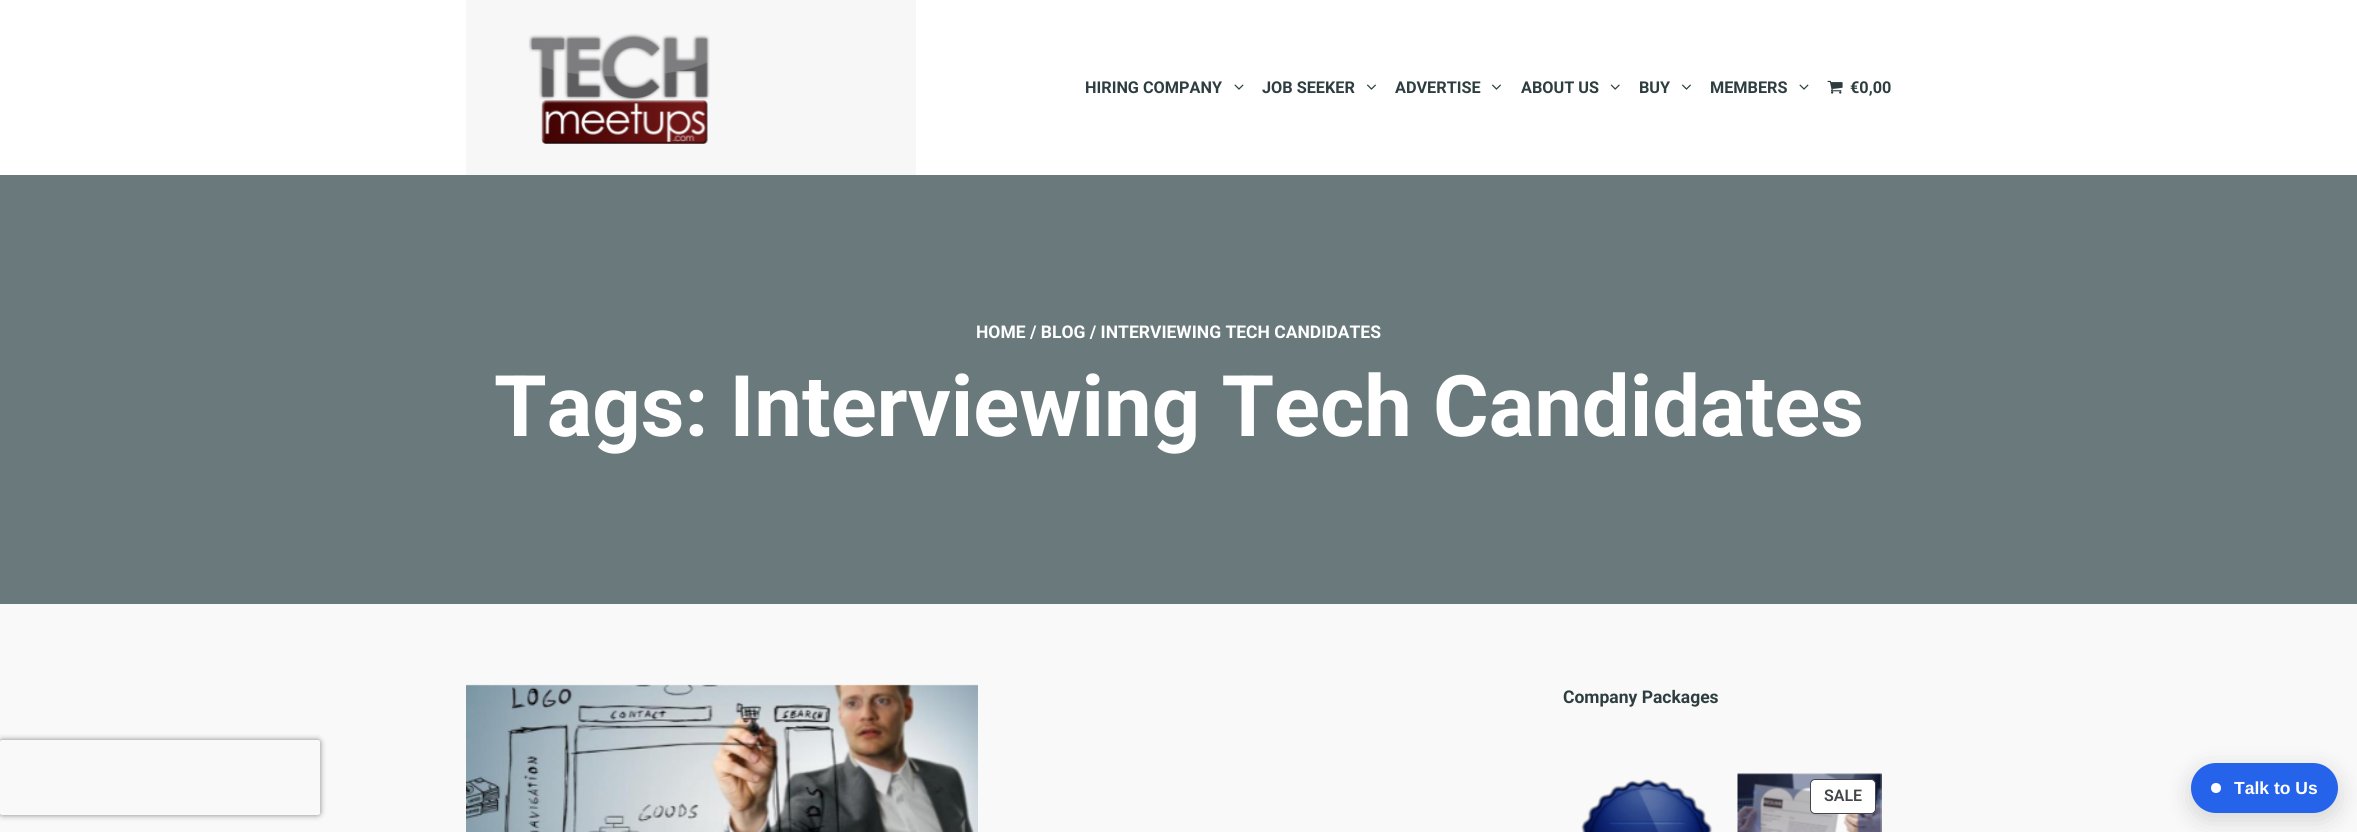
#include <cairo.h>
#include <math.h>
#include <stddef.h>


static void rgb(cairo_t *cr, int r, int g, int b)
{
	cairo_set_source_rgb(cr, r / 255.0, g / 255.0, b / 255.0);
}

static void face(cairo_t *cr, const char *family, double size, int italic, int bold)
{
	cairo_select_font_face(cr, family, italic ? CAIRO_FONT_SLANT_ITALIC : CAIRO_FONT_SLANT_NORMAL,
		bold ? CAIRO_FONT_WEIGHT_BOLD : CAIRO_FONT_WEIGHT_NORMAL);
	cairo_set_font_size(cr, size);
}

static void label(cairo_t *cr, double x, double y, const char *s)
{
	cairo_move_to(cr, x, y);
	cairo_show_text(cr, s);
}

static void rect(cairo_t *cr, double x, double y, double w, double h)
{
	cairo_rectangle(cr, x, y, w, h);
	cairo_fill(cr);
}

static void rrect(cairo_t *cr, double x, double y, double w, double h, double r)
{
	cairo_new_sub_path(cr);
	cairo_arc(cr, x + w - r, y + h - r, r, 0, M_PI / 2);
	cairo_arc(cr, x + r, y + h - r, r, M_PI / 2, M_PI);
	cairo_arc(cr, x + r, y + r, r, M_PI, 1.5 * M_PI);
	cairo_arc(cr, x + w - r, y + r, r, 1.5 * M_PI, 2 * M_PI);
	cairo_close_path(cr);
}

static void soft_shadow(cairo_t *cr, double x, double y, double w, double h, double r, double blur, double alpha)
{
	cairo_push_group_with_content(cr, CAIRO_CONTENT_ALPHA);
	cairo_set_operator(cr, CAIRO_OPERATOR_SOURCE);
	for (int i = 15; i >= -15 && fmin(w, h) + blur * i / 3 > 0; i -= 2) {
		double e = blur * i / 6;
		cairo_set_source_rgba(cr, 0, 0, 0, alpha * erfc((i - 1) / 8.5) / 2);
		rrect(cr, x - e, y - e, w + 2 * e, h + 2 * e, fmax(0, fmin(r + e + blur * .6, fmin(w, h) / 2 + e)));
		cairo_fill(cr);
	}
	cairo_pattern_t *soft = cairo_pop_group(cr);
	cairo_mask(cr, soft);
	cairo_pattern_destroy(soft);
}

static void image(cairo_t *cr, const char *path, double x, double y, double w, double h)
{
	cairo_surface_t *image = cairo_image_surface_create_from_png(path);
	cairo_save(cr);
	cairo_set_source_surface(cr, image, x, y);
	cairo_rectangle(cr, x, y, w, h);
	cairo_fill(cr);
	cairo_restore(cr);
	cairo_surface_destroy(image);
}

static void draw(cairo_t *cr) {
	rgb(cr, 249, 249, 249);
	cairo_paint(cr);
	cairo_save(cr);
	cairo_set_fill_rule(cr, CAIRO_FILL_RULE_EVEN_ODD);
	cairo_new_path(cr);
	cairo_move_to(cr, 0, 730);
	cairo_line_to(cr, 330, 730);
	cairo_line_to(cr, 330, 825);
	cairo_line_to(cr, 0, 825);
	cairo_close_path(cr);
	cairo_move_to(cr, 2.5, 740);
	cairo_line_to(cr, 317.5, 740);
	cairo_curve_to(cr, 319, 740, 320, 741, 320, 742.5);
	cairo_line_to(cr, 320, 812.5);
	cairo_curve_to(cr, 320, 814, 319, 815, 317.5, 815);
	cairo_line_to(cr, 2.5, 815);
	cairo_curve_to(cr, 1, 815, 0, 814, 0, 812.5);
	cairo_line_to(cr, 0, 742.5);
	cairo_curve_to(cr, 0, 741, 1, 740, 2.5, 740);
	cairo_close_path(cr);
	cairo_clip(cr);
	rgb(cr, 128, 128, 128);
	soft_shadow(cr, 0, 740, 320, 75, 2.5, 3, 1);
	cairo_restore(cr);
	rgb(cr, 255, 255, 255);
	rect(cr, 0, 0, 2357, 175);
	rgb(cr, 247, 247, 247);
	rect(cr, 466, 0, 450, 175);
	image(cr, "image0.png", 528, 33, 182, 111);
	face(cr, "Roboto", 16.25, 0, 1);
	rgb(cr, 46, 62, 64);
	label(cr, 1085, 93, "HIRING COMPANY");
	image(cr, "image1.png", 1234, 84, 10, 6);
	label(cr, 1262, 93, "JOB SEEKER");
	image(cr, "image2.png", 1367, 84, 9, 6);
	label(cr, 1395, 93, "ADVERTISE");
	image(cr, "image2.png", 1492, 84, 9, 6);
	label(cr, 1521, 93, "ABOUT US");
	image(cr, "image3.png", 1610, 84, 10, 6);
	label(cr, 1639, 93, "BUY");
	image(cr, "image2.png", 1682, 84, 9, 6);
	label(cr, 1710, 93, "MEMBERS");
	image(cr, "image1.png", 1799, 84, 10, 6);
	image(cr, "image4.png", 1827, 80, 16, 14);
	label(cr, 1850, 93, "€0,00");
	rgb(cr, 106, 122, 124);
	rect(cr, 0, 175, 2357, 429);
	face(cr, "Roboto", 17.5, 0, 1);
	rgb(cr, 255, 255, 255);
	label(cr, 976, 338, "HOME / BLOG / INTERVIEWING TECH CANDIDATES");
	face(cr, "Roboto", 85, 0, 1);
	label(cr, 494, 436, "Tags: Interviewing Tech Candidates");
	image(cr, "image5.png", 466, 684, 512, 148);
	face(cr, "Roboto", 17.5, 0, 1);
	rgb(cr, 46, 62, 64);
	label(cr, 1563, 703, "Company Packages");
	image(cr, "image6.png", 1581, 779, 132, 53);
	image(cr, "image7.png", 1737, 773, 145, 59);
	rgb(cr, 255, 255, 255);
	rrect(cr, 1810.5, 779.5, 65, 34, 4.5);
	cairo_fill_preserve(cr);
	rgb(cr, 67, 69, 75);
	cairo_set_line_width(cr, 1);
	cairo_stroke(cr);
	face(cr, "Roboto SemiBold", 16, 0, 0);
	label(cr, 1824, 801, "SALE");
	rgb(cr, 0, 0, 0);
	soft_shadow(cr, 2191, 770, 147, 50, 25, 12.5, 0.15);
	rgb(cr, 37, 99, 235);
	rrect(cr, 2191, 763, 147, 50, 25);
	cairo_fill(cr);
	rgb(cr, 255, 255, 255);
	cairo_arc(cr, 2216, 788, 5, 0, 2 * M_PI);
	cairo_fill(cr);
	face(cr, "Liberation Sans", 17.5, 0, 1);
	label(cr, 2234, 794, "Talk to Us");
}

int main(void) {
	cairo_surface_t *surface = cairo_image_surface_create(CAIRO_FORMAT_RGB24, 2357, 832);
	cairo_t *cr = cairo_create(surface);
	cairo_font_options_t *options = cairo_font_options_create();
	cairo_font_options_set_hint_metrics(options, CAIRO_HINT_METRICS_OFF);
	cairo_font_options_set_hint_style(options, CAIRO_HINT_STYLE_NONE);
	cairo_set_font_options(cr, options);
	cairo_set_miter_limit(cr, 4);
	draw(cr);
	cairo_surface_write_to_png(surface, "render.png");
	cairo_font_options_destroy(options);
	cairo_destroy(cr);
	cairo_surface_destroy(surface);
	return 0;
}
